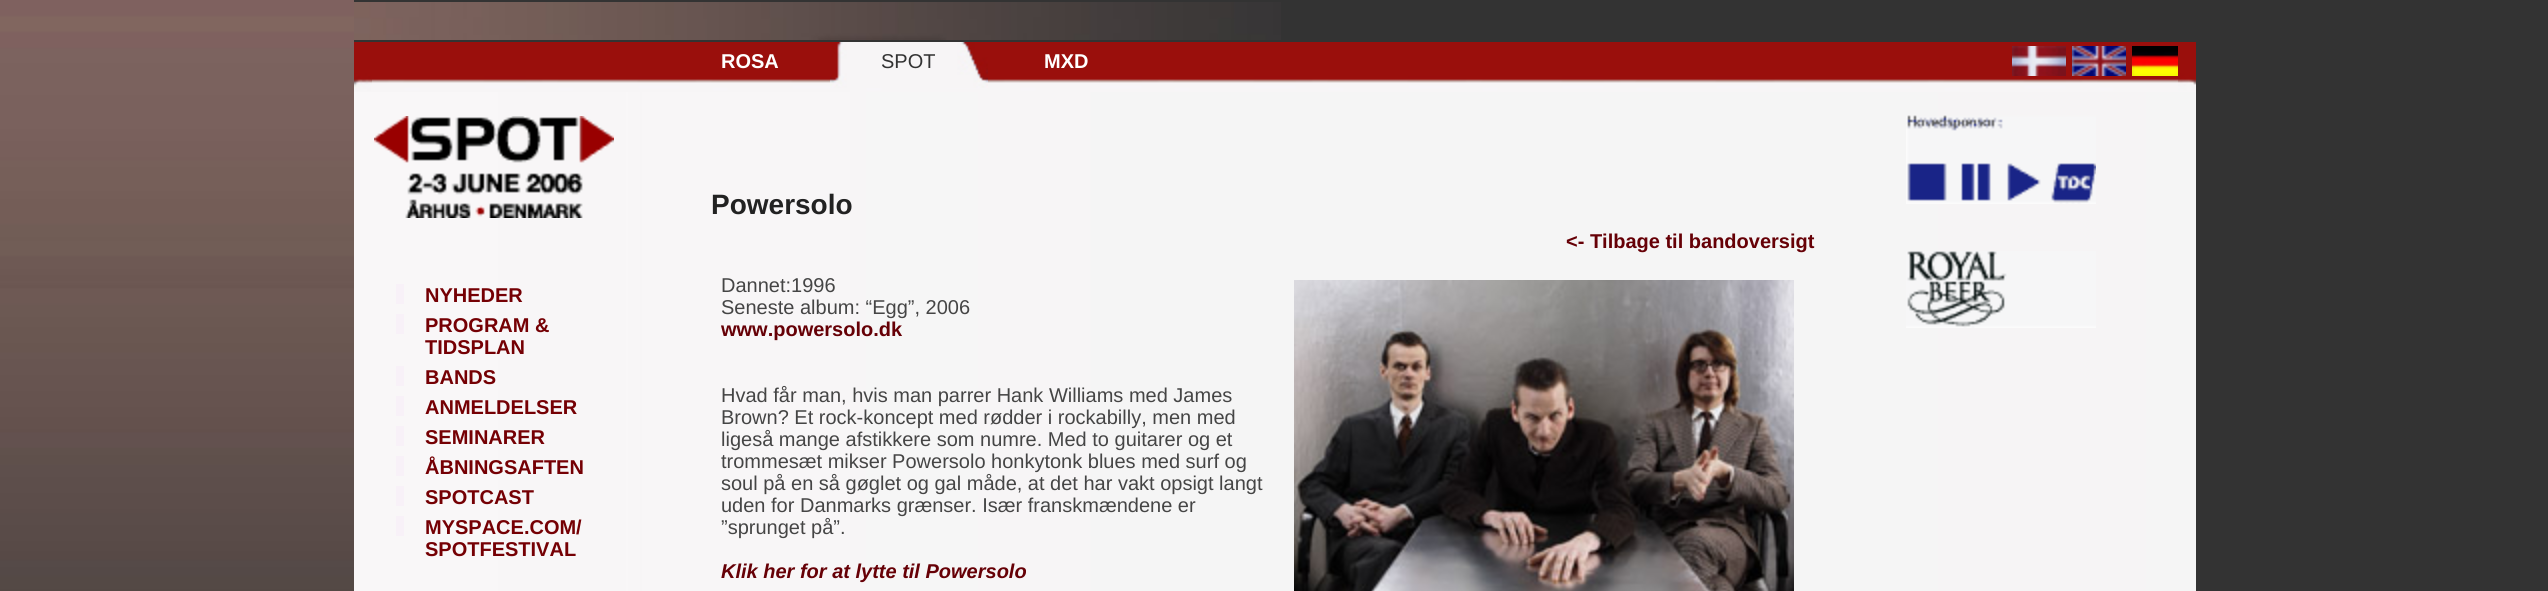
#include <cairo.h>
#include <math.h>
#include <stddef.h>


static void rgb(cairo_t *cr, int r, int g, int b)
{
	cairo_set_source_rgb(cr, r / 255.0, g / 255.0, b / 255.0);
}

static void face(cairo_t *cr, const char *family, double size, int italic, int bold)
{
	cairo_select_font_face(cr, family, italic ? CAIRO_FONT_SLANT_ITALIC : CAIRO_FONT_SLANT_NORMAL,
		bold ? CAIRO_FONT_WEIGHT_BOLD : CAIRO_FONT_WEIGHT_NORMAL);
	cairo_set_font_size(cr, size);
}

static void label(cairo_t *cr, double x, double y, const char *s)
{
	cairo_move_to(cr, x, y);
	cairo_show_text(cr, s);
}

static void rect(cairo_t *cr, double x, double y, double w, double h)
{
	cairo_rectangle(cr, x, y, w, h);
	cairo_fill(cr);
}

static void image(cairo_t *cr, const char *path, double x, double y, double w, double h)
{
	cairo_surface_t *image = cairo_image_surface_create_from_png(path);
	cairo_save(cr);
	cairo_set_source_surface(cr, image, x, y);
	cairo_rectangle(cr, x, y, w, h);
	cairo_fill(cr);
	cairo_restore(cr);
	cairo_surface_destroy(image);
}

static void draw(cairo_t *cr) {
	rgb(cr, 51, 51, 51);
	cairo_paint(cr);
	image(cr, "image0.png", 0, 0, 354, 591);
	image(cr, "image1.png", 354, 2, 927, 38);
	image(cr, "image2.png", 354, 42, 18, 50);
	image(cr, "image3.png", 372, 42, 1806, 50);
	face(cr, "Liberation Sans", 20, 0, 1);
	rgb(cr, 255, 255, 255);
	label(cr, 721, 68, "ROSA");
	image(cr, "image4.png", 830, 42, 158, 46);
	face(cr, "Liberation Sans", 20, 0, 0);
	rgb(cr, 51, 51, 51);
	label(cr, 881, 68, "SPOT");
	face(cr, "Liberation Sans", 20, 0, 1);
	rgb(cr, 255, 255, 255);
	label(cr, 1044, 68, "MXD");
	image(cr, "image5.png", 2012, 46, 54, 30);
	image(cr, "image6.png", 2072, 46, 54, 30);
	image(cr, "image7.png", 2132, 46, 46, 30);
	image(cr, "image8.png", 2178, 42, 18, 50);
	image(cr, "image9.png", 354, 92, 1842, 499);
	image(cr, "image10.png", 374, 116, 240, 102);
	rgb(cr, 248, 241, 248);
	rect(cr, 396, 284, 8, 20);
	rgb(cr, 117, 0, 4);
	label(cr, 425, 302, "NYHEDER");
	rgb(cr, 248, 241, 248);
	rect(cr, 396, 314, 8, 20);
	rgb(cr, 117, 0, 4);
	label(cr, 425, 332, "PROGRAM &");
	label(cr, 425, 354, "TIDSPLAN");
	rgb(cr, 248, 241, 248);
	rect(cr, 396, 366, 8, 20);
	rgb(cr, 117, 0, 4);
	label(cr, 425, 384, "BANDS");
	rgb(cr, 248, 241, 248);
	rect(cr, 396, 396, 8, 20);
	rgb(cr, 117, 0, 4);
	label(cr, 425, 414, "ANMELDELSER");
	rgb(cr, 248, 241, 248);
	rect(cr, 396, 426, 8, 20);
	rgb(cr, 117, 0, 4);
	label(cr, 425, 444, "SEMINARER");
	rgb(cr, 248, 241, 248);
	rect(cr, 396, 456, 8, 20);
	rgb(cr, 117, 0, 4);
	label(cr, 425, 474, "ÅBNINGSAFTEN");
	rgb(cr, 248, 241, 248);
	rect(cr, 396, 486, 8, 20);
	rgb(cr, 117, 0, 4);
	label(cr, 425, 504, "SPOTCAST");
	rgb(cr, 248, 241, 248);
	rect(cr, 396, 516, 8, 20);
	rgb(cr, 117, 0, 4);
	label(cr, 425, 534, "MYSPACE.COM/");
	label(cr, 425, 556, "SPOTFESTIVAL");
	face(cr, "Liberation Sans", 28, 0, 1);
	rgb(cr, 34, 34, 34);
	label(cr, 711, 214, "Powersolo");
	face(cr, "Liberation Sans", 20, 0, 1);
	rgb(cr, 102, 0, 6);
	label(cr, 1566, 248, "<- Tilbage til bandoversigt");
	face(cr, "Liberation Sans", 20, 0, 0);
	rgb(cr, 69, 69, 69);
	label(cr, 721, 292, "Dannet:1996");
	image(cr, "image11.png", 1294, 280, 500, 311);
	label(cr, 721, 314, "Seneste album: “Egg”, 2006");
	face(cr, "Liberation Sans", 20, 0, 1);
	rgb(cr, 102, 0, 6);
	label(cr, 721, 336, "www.powersolo.dk");
	face(cr, "Liberation Sans", 20, 0, 0);
	rgb(cr, 69, 69, 69);
	label(cr, 721, 402, "Hvad får man, hvis man parrer Hank Williams med James");
	label(cr, 721, 424, "Brown? Et rock-koncept med rødder i rockabilly, men med");
	label(cr, 721, 446, "ligeså mange afstikkere som numre. Med to guitarer og et");
	label(cr, 721, 468, "trommesæt mikser Powersolo honkytonk blues med surf og");
	label(cr, 721, 490, "soul på en så gøglet og gal måde, at det har vakt opsigt langt");
	label(cr, 721, 512, "uden for Danmarks grænser. Især franskmændene er");
	label(cr, 721, 534, "”sprunget på”.");
	face(cr, "Liberation Sans", 20, 1, 1);
	rgb(cr, 102, 0, 6);
	label(cr, 721, 578, "Klik her for at lytte til Powersolo");
	image(cr, "image12.png", 1906, 115, 190, 89);
	image(cr, "image13.png", 1906, 251, 190, 77);
}

int main(void) {
	cairo_surface_t *surface = cairo_image_surface_create(CAIRO_FORMAT_RGB24, 2548, 591);
	cairo_t *cr = cairo_create(surface);
	cairo_font_options_t *options = cairo_font_options_create();
	cairo_font_options_set_hint_metrics(options, CAIRO_HINT_METRICS_OFF);
	cairo_font_options_set_hint_style(options, CAIRO_HINT_STYLE_NONE);
	cairo_set_font_options(cr, options);
	cairo_set_miter_limit(cr, 4);
	draw(cr);
	cairo_surface_write_to_png(surface, "render.png");
	cairo_font_options_destroy(options);
	cairo_destroy(cr);
	cairo_surface_destroy(surface);
	return 0;
}
